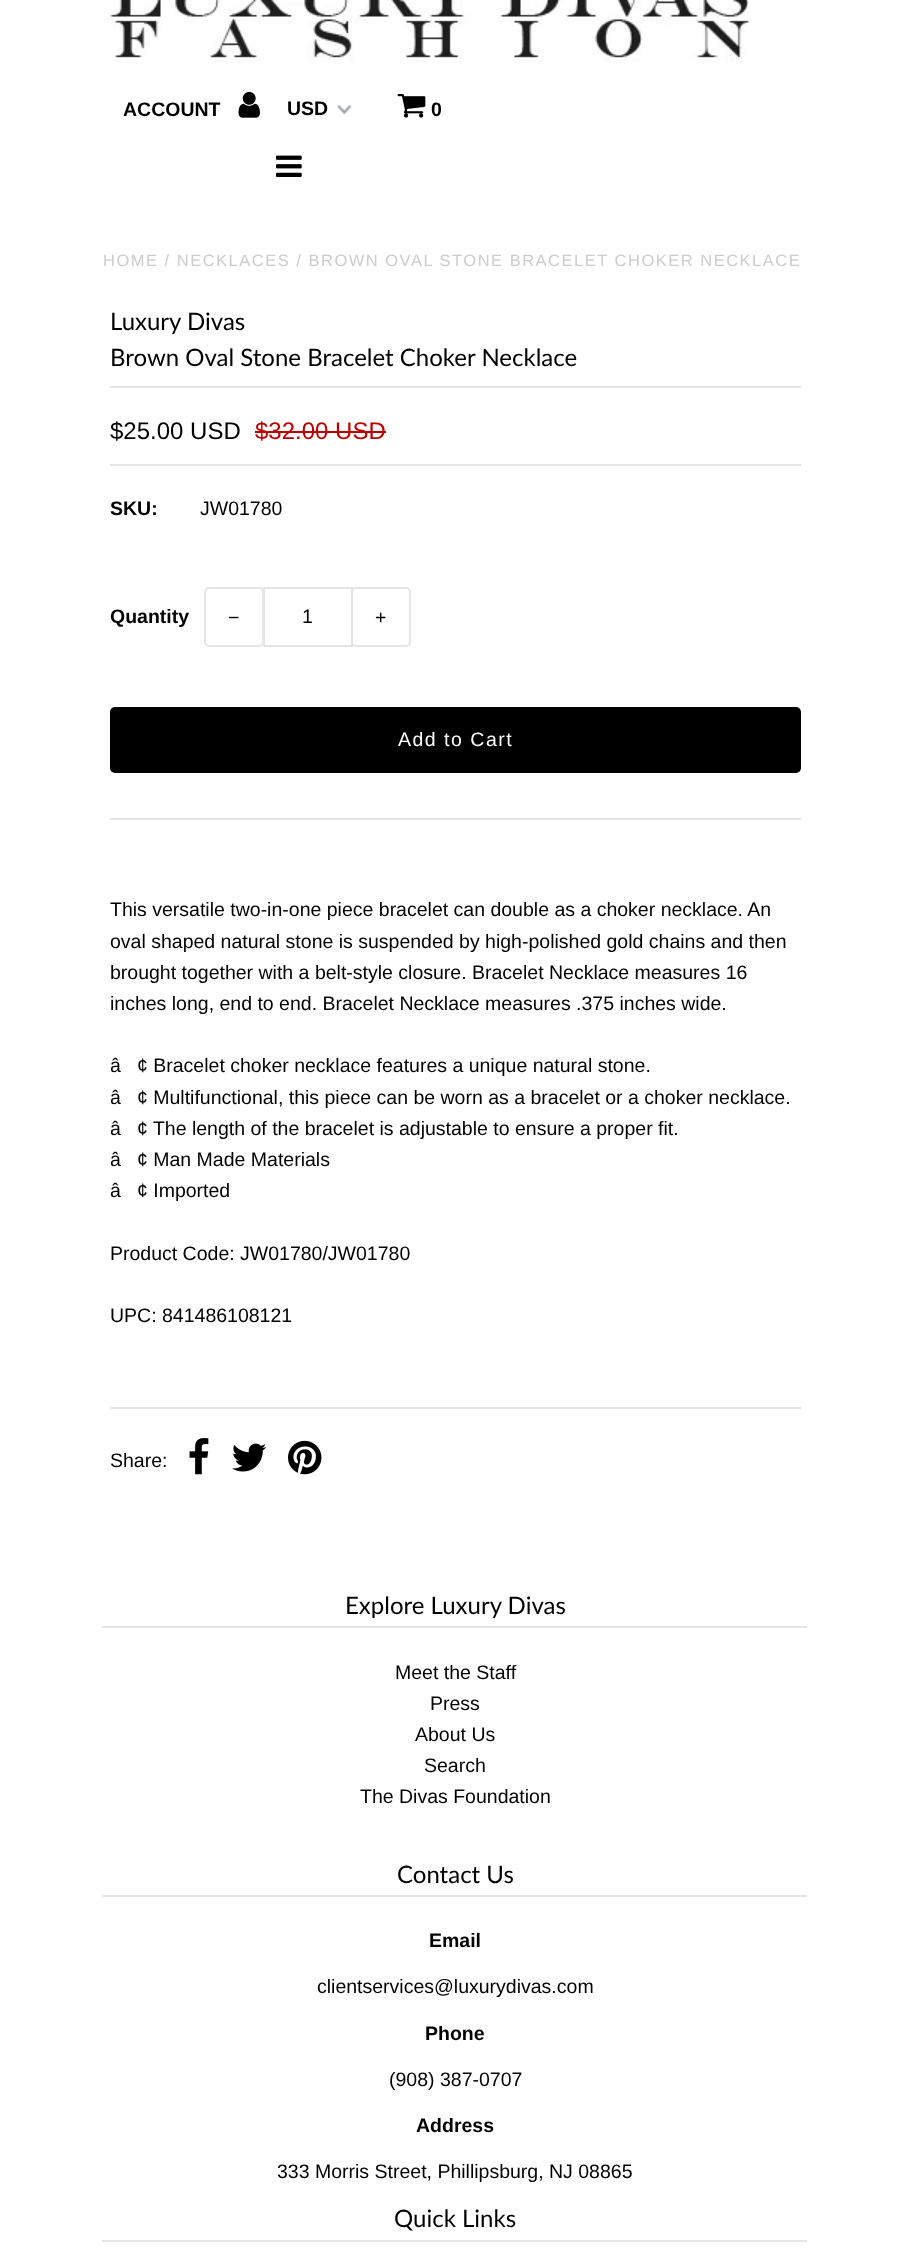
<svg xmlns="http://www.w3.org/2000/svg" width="910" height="2248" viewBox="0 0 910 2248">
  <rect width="100%" height="100%" fill="#fff"/>
  <image x="108" y="0" width="642" height="62" href="img/1.png"/>
  <image x="238" y="91" width="22" height="27" href="img/2.png"/>
  <image x="337" y="104" width="15" height="11" href="img/3.png"/>
  <image x="397" y="94" width="29" height="24" href="img/4.png"/>
  <image x="276" y="155" width="26" height="22" href="img/5.png"/>
  <path d="M110 386h691v2H110z" fill="#e5e5e5"/>
  <path d="M110 818h691v2H110z" fill="#e5e5e5"/>
  <path d="M110 464h691v2H110z" fill="#e5e5e5"/>
  <path d="M255 431h131v2H255z" fill="#bc0000"/>
  <rect x="205" y="588" width="58" height="58" rx="4" fill="none" stroke="#e5e5e5" stroke-width="2"/>
  <path d="M264 588h88v58H264z" fill="none" stroke="#e5e5e5" stroke-width="2"/>
  <rect x="352" y="588" width="58" height="58" rx="4" fill="none" stroke="#e5e5e5" stroke-width="2"/>
  <rect x="110" y="707" width="691" height="66" rx="5" fill="#000"/>
  <path d="M110 1407h691v2H110z" fill="#e5e5e5"/>
  <image x="189" y="1438" width="20" height="37" href="img/6.png"/>
  <image x="232" y="1443" width="35" height="29" href="img/7.png"/>
  <image x="288" y="1440" width="34" height="35" href="img/8.png"/>
  <path d="M102 1626h705v2H102z" fill="#e5e5e5"/>
  <path d="M102 1895h705v2H102z" fill="#e5e5e5"/>
  <path d="M102 2240h705v2H102z" fill="#e5e5e5"/>
  <g font-family="Liberation Sans" font-size="19.5" font-weight="bold" fill="#000">
    <text x="123" y="116">ACCOUNT</text>
    <text x="287" y="115">USD</text>
    <text x="431" y="116">0</text>
  </g>
  <text x="103" y="266" font-family="Liberation Sans" font-size="16.5" letter-spacing="1.5" fill="#ccc">HOME / NECKLACES / BROWN OVAL STONE BRACELET CHOKER NECKLACE</text>
  <g font-family="Lato" font-size="24" fill="#000">
    <text x="110" y="330">Luxury Divas</text>
    <text x="110" y="366">Brown Oval Stone Bracelet Choker Necklace</text>
  </g>
  <text x="110" y="439" font-family="Liberation Sans" font-size="24" fill="#000">$25.00 USD</text>
  <text x="255" y="439" font-family="Liberation Sans" font-size="24" fill="#bc0000">$32.00 USD</text>
  <text x="110" y="515" font-family="Liberation Sans" font-size="19.5" font-weight="bold" fill="#000">SKU:</text>
  <text x="200" y="515" font-family="Liberation Sans" font-size="19.5" fill="#000">JW01780</text>
  <text x="110" y="623" font-family="Liberation Sans" font-size="19.5" font-weight="bold" fill="#000">Quantity</text>
  <text x="228" y="624" font-family="Liberation Sans" font-size="19.5" letter-spacing="1.5" fill="#000">−</text>
  <text x="302" y="623" font-family="Liberation Sans" font-size="19.5" fill="#000">1</text>
  <text x="375" y="624" font-family="Liberation Sans" font-size="19.5" letter-spacing="1.5" fill="#000">+</text>
  <text x="398" y="746" font-family="Liberation Sans" font-size="19.5" letter-spacing="1.5" fill="#fff">Add to Cart</text>
  <g font-family="Liberation Sans" font-size="19.5" fill="#000">
    <text x="110" y="916">This versatile two-in-one piece bracelet can double as a choker necklace. An</text>
    <text x="110" y="948">oval shaped natural stone is suspended by high-polished gold chains and then</text>
    <text x="110" y="979">brought together with a belt-style closure. Bracelet Necklace measures 16</text>
    <text x="110" y="1010">inches long, end to end. Bracelet Necklace measures .375 inches wide.</text>
    <text x="110" y="1072">â</text>
    <text x="137" y="1072">¢ Bracelet choker necklace features a unique natural stone.</text>
    <text x="110" y="1104">â</text>
    <text x="137" y="1104">¢ Multifunctional, this piece can be worn as a bracelet or a choker necklace.</text>
    <text x="110" y="1135">â</text>
    <text x="137" y="1135">¢ The length of the bracelet is adjustable to ensure a proper fit.</text>
    <text x="110" y="1166">â</text>
    <text x="137" y="1166">¢ Man Made Materials</text>
    <text x="110" y="1197">â</text>
    <text x="137" y="1197">¢ Imported</text>
    <text x="110" y="1260">Product Code: JW01780/JW01780</text>
    <text x="110" y="1322">UPC: 841486108121</text>
    <text x="110" y="1467">Share:</text>
  </g>
  <text x="345" y="1614" font-family="Lato" font-size="24" fill="#000">Explore Luxury Divas</text>
  <g font-family="Liberation Sans" font-size="19.5" fill="#000">
    <text x="395" y="1679">Meet the Staff</text>
    <text x="430" y="1710">Press</text>
    <text x="415" y="1741">About Us</text>
    <text x="424" y="1772">Search</text>
    <text x="360" y="1803">The Divas Foundation</text>
  </g>
  <text x="397" y="1883" font-family="Lato" font-size="24" fill="#000">Contact Us</text>
  <text x="429" y="1947" font-family="Liberation Sans" font-size="19.5" font-weight="bold" fill="#000">Email</text>
  <text x="317" y="1993" font-family="Liberation Sans" font-size="19.5" fill="#000">clientservices@luxurydivas.com</text>
  <text x="425" y="2040" font-family="Liberation Sans" font-size="19.5" font-weight="bold" fill="#000">Phone</text>
  <text x="389" y="2086" font-family="Liberation Sans" font-size="19.5" fill="#000">(908) 387-0707</text>
  <text x="416" y="2132" font-family="Liberation Sans" font-size="19.5" font-weight="bold" fill="#000">Address</text>
  <text x="277" y="2178" font-family="Liberation Sans" font-size="19.5" fill="#000">333 Morris Street, Phillipsburg, NJ 08865</text>
  <text x="394" y="2227" font-family="Lato" font-size="24" fill="#000">Quick Links</text>
</svg>
